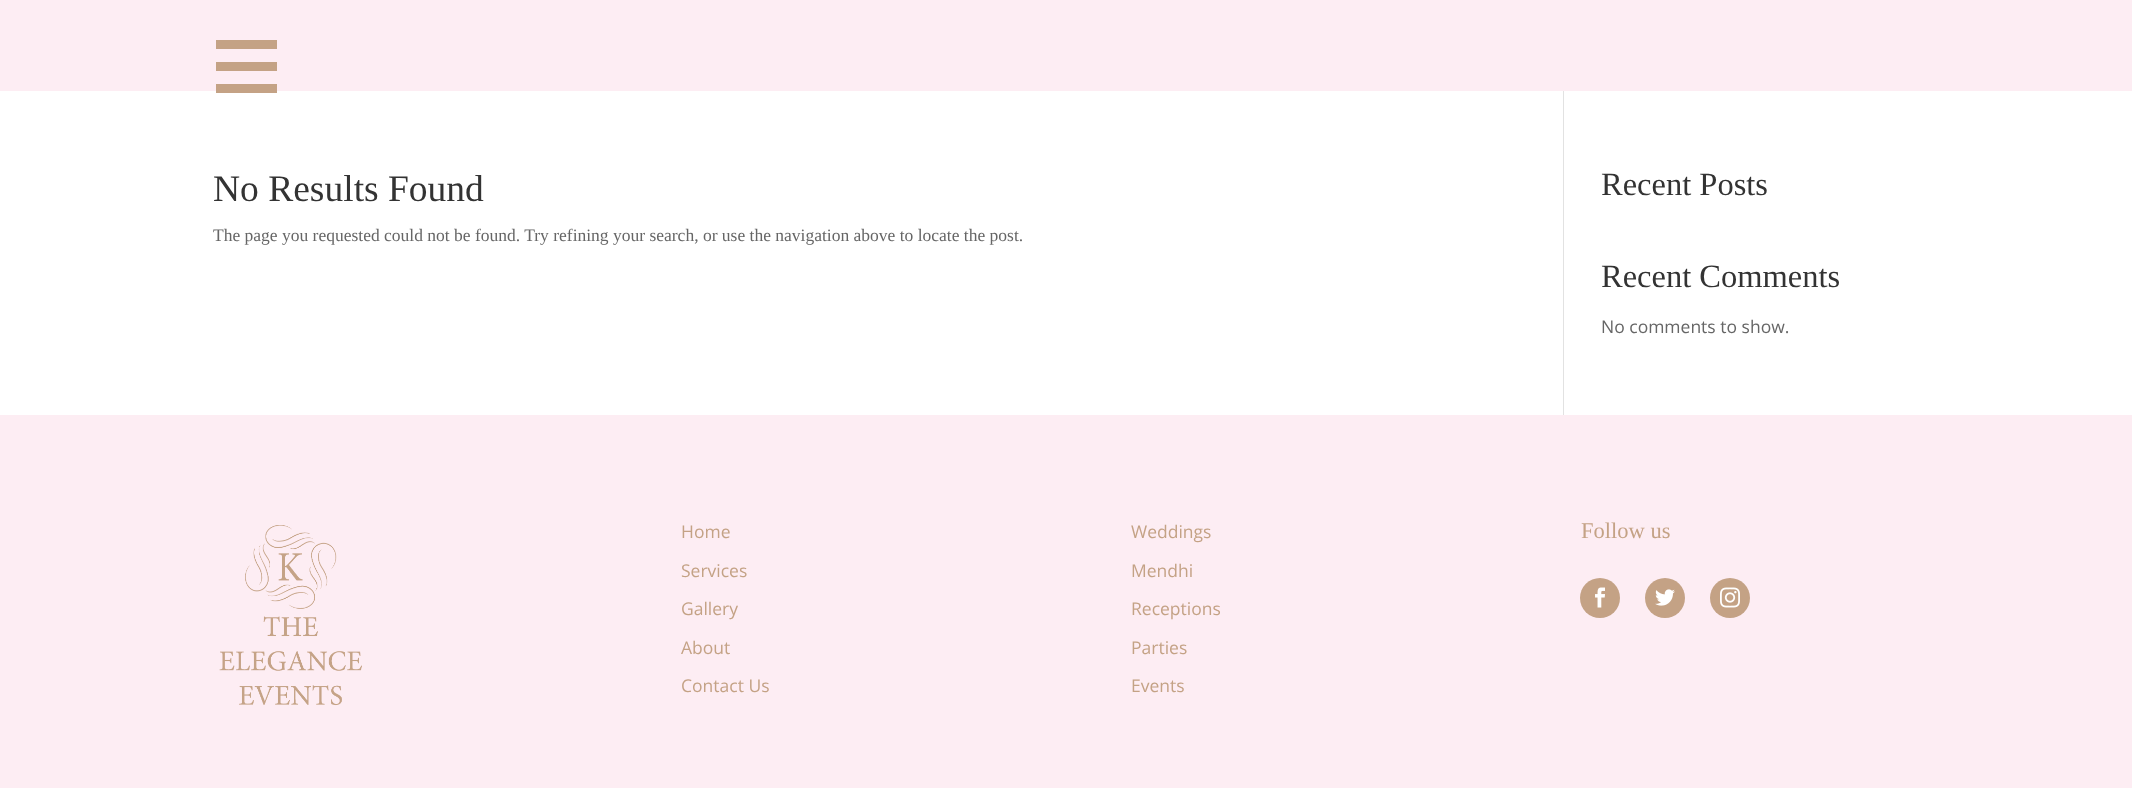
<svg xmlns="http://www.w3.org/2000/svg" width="2132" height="788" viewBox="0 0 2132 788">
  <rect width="100%" height="100%" fill="#fff"/>
  <path d="M0 0h2132v91H0z" fill="#fdedf3"/>
  <path d="M216 71H277V62H216ZM216 93H277V84H216ZM216 40V49H277V40Z" fill="#c4a285"/>
  <path d="M1563 91h1v324H1563z" fill="#e2e2e2"/>
  <path d="M0 415h2132v373H0z" fill="#fdedf3"/>
  <image x="219" y="525" width="143" height="181" href="img/1.png"/>
  <circle cx="1600" cy="598" r="20" fill="#c4a285"/>
  <image x="1595" y="587" width="10" height="21" href="img/2.png"/>
  <circle cx="1665" cy="598" r="20" fill="#c4a285"/>
  <image x="1655" y="589" width="20" height="17" href="img/3.png"/>
  <circle cx="1730" cy="598" r="20" fill="#c4a285"/>
  <image x="1720" y="587" width="20" height="21" href="img/4.png"/>
  <text x="213" y="201" font-family="Liberation Serif" font-size="37.5" fill="#333">No Results Found</text>
  <text x="213" y="241" font-family="Liberation Serif" font-size="17.5" fill="#666">The page you requested could not be found. Try refining your search, or use the navigation above to locate the post.</text>
  <g font-family="Liberation Serif" font-size="32.5" fill="#333">
    <text x="1601" y="195">Recent Posts</text>
    <text x="1601" y="287">Recent Comments</text>
  </g>
  <text x="1601" y="333" font-family="Open Sans" font-size="17.5" fill="#666">No comments to show.</text>
  <g font-family="Open Sans" font-size="17.5" fill="#c4a285">
    <text x="681" y="538">Home</text>
    <text x="681" y="577">Services</text>
    <text x="681" y="615">Gallery</text>
    <text x="681" y="654">About</text>
    <text x="681" y="692">Contact Us</text>
    <text x="1131" y="538">Weddings</text>
    <text x="1131" y="577">Mendhi</text>
    <text x="1131" y="615">Receptions</text>
    <text x="1131" y="654">Parties</text>
    <text x="1131" y="692">Events</text>
  </g>
  <text x="1581" y="538" font-family="Liberation Serif" font-size="22.5" fill="#c4a285">Follow us</text>
</svg>
